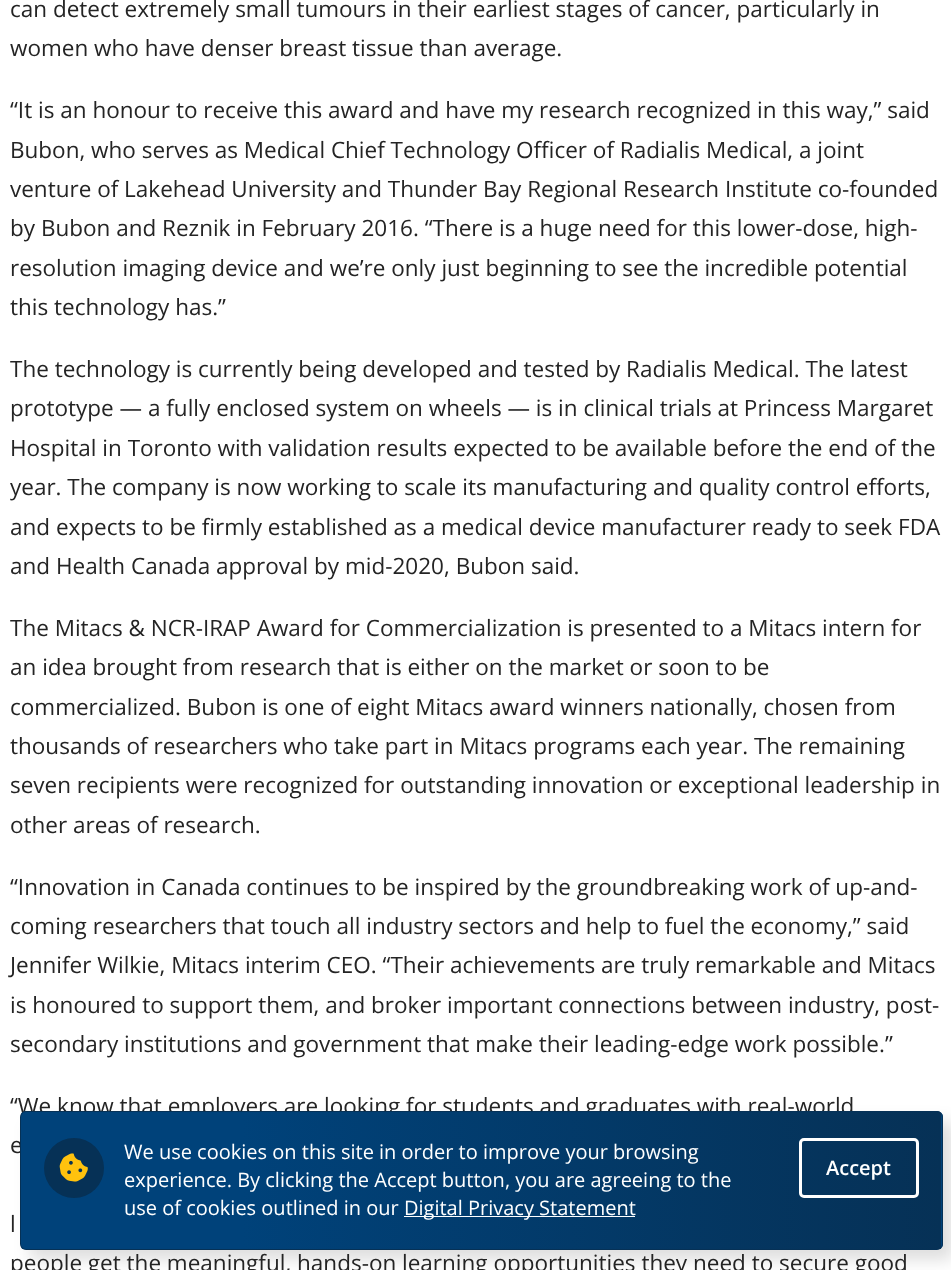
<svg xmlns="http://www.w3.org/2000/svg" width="951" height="1270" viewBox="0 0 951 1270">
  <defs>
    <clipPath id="clip1"><rect x="20" y="1111" width="923" height="139" rx="6"/></clipPath>
    <linearGradient id="g1" gradientUnits="userSpaceOnUse" x1="941" y1="1045" x2="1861" y2="1043"><stop offset="0.24" stop-color="#00427a"/><stop offset="1" stop-color="#063156"/></linearGradient>
    <linearGradient id="g2" gradientUnits="userSpaceOnUse" x1="941" y1="1182" x2="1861" y2="1180"><stop offset="0.24" stop-color="#00427a"/><stop offset="1" stop-color="#063156"/></linearGradient>
    <linearGradient id="g3" gradientUnits="userSpaceOnUse" x1="21" y1="1045" x2="941" y2="1043"><stop offset="0.24" stop-color="#00427a"/><stop offset="1" stop-color="#063156"/></linearGradient>
    <linearGradient id="g4" gradientUnits="userSpaceOnUse" x1="21" y1="1182" x2="941" y2="1180"><stop offset="0.24" stop-color="#00427a"/><stop offset="1" stop-color="#063156"/></linearGradient>
  </defs>
  <rect width="100%" height="100%" fill="#fff"/>
  <rect x="30" y="1121" width="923" height="139" rx="6" fill="#00000021" filter="blur(8px)"/>
  <g clip-path="url(#clip1)">
    <path d="M941 1112h2v1H941z" fill="url(#g1)"/>
    <path d="M941 1113h2v136H941z" fill="url(#g2)"/>
  </g>
  <g font-family="Open Sans" font-size="22.5" fill="#242424">
    <text x="10" y="17">can detect extremely small tumours in their earliest stages of cancer, particularly in</text>
    <text x="10" y="56">women who have denser breast tissue than average.</text>
    <text x="10" y="118">“It is an honour to receive this award and have my research recognized in this way,” said</text>
    <text x="10" y="158">Bubon, who serves as Medical Chief Technology Officer of Radialis Medical, a joint</text>
    <text x="10" y="197">venture of Lakehead University and Thunder Bay Regional Research Institute co-founded</text>
    <text x="10" y="236">by Bubon and Reznik in February 2016. “There is a huge need for this lower-dose, high-</text>
    <text x="10" y="276">resolution imaging device and we’re only just beginning to see the incredible potential</text>
    <text x="10" y="315">this technology has.”</text>
    <text x="10" y="377">The technology is currently being developed and tested by Radialis Medical. The latest</text>
    <text x="10" y="416">prototype — a fully enclosed system on wheels — is in clinical trials at Princess Margaret</text>
    <text x="10" y="456">Hospital in Toronto with validation results expected to be available before the end of the</text>
    <text x="10" y="495">year. The company is now working to scale its manufacturing and quality control efforts,</text>
    <text x="10" y="535">and expects to be firmly established as a medical device manufacturer ready to seek FDA</text>
    <text x="10" y="574">and Health Canada approval by mid-2020, Bubon said.</text>
    <text x="10" y="636">The Mitacs &amp; NCR-IRAP Award for Commercialization is presented to a Mitacs intern for</text>
    <text x="10" y="675">an idea brought from research that is either on the market or soon to be</text>
    <text x="10" y="715">commercialized. Bubon is one of eight Mitacs award winners nationally, chosen from</text>
    <text x="10" y="754">thousands of researchers who take part in Mitacs programs each year. The remaining</text>
    <text x="10" y="793">seven recipients were recognized for outstanding innovation or exceptional leadership in</text>
    <text x="10" y="833">other areas of research.</text>
    <text x="10" y="895">“Innovation in Canada continues to be inspired by the groundbreaking work of up-and-</text>
    <text x="10" y="934">coming researchers that touch all industry sectors and help to fuel the economy,” said</text>
    <text x="10" y="973">Jennifer Wilkie, Mitacs interim CEO. “Their achievements are truly remarkable and Mitacs</text>
    <text x="10" y="1013">is honoured to support them, and broker important connections between industry, post-</text>
    <text x="10" y="1052">secondary institutions and government that make their leading-edge work possible.”</text>
    <text x="10" y="1114">“We know that employers are looking for students and graduates with real-world</text>
    <text x="10" y="1153">e</text>
    <text x="10" y="1232">l</text>
    <text x="10" y="1271">people get the meaningful, hands-on learning opportunities they need to secure good</text>
  </g>
  <g clip-path="url(#clip1)">
    <path d="M21 1111h920v2H21z" fill="url(#g3)"/>
    <path d="M21 1113h920v136H21z" fill="url(#g4)"/>
  </g>
  <rect x="20.5" y="1111.5" width="922" height="138" rx="5.5" fill="none" stroke="#063156"/>
  <circle cx="74" cy="1168" r="30" fill="#063156"/>
  <image x="59" y="1153" width="29" height="29" href="img/1.png"/>
  <g font-family="Open Sans" font-size="20" fill="#fff">
    <text x="124" y="1159">We use cookies on this site in order to improve your browsing</text>
    <text x="124" y="1187">experience. By clicking the Accept button, you are agreeing to the</text>
    <text x="124" y="1215">use of cookies outlined in our</text>
  </g>
  <path d="M404 1216h231v1H404z" fill="#fff"/>
  <text x="404" y="1215" font-family="Open Sans" font-size="20" fill="#fff">Digital Privacy Statement</text>
  <rect x="800.5" y="1139.5" width="117" height="57" rx="3.5" fill="none" stroke="#fff" stroke-width="3"/>
  <text x="826" y="1175" font-family="Open Sans" font-size="20" font-weight="600" fill="#fff">Accept</text>
</svg>
